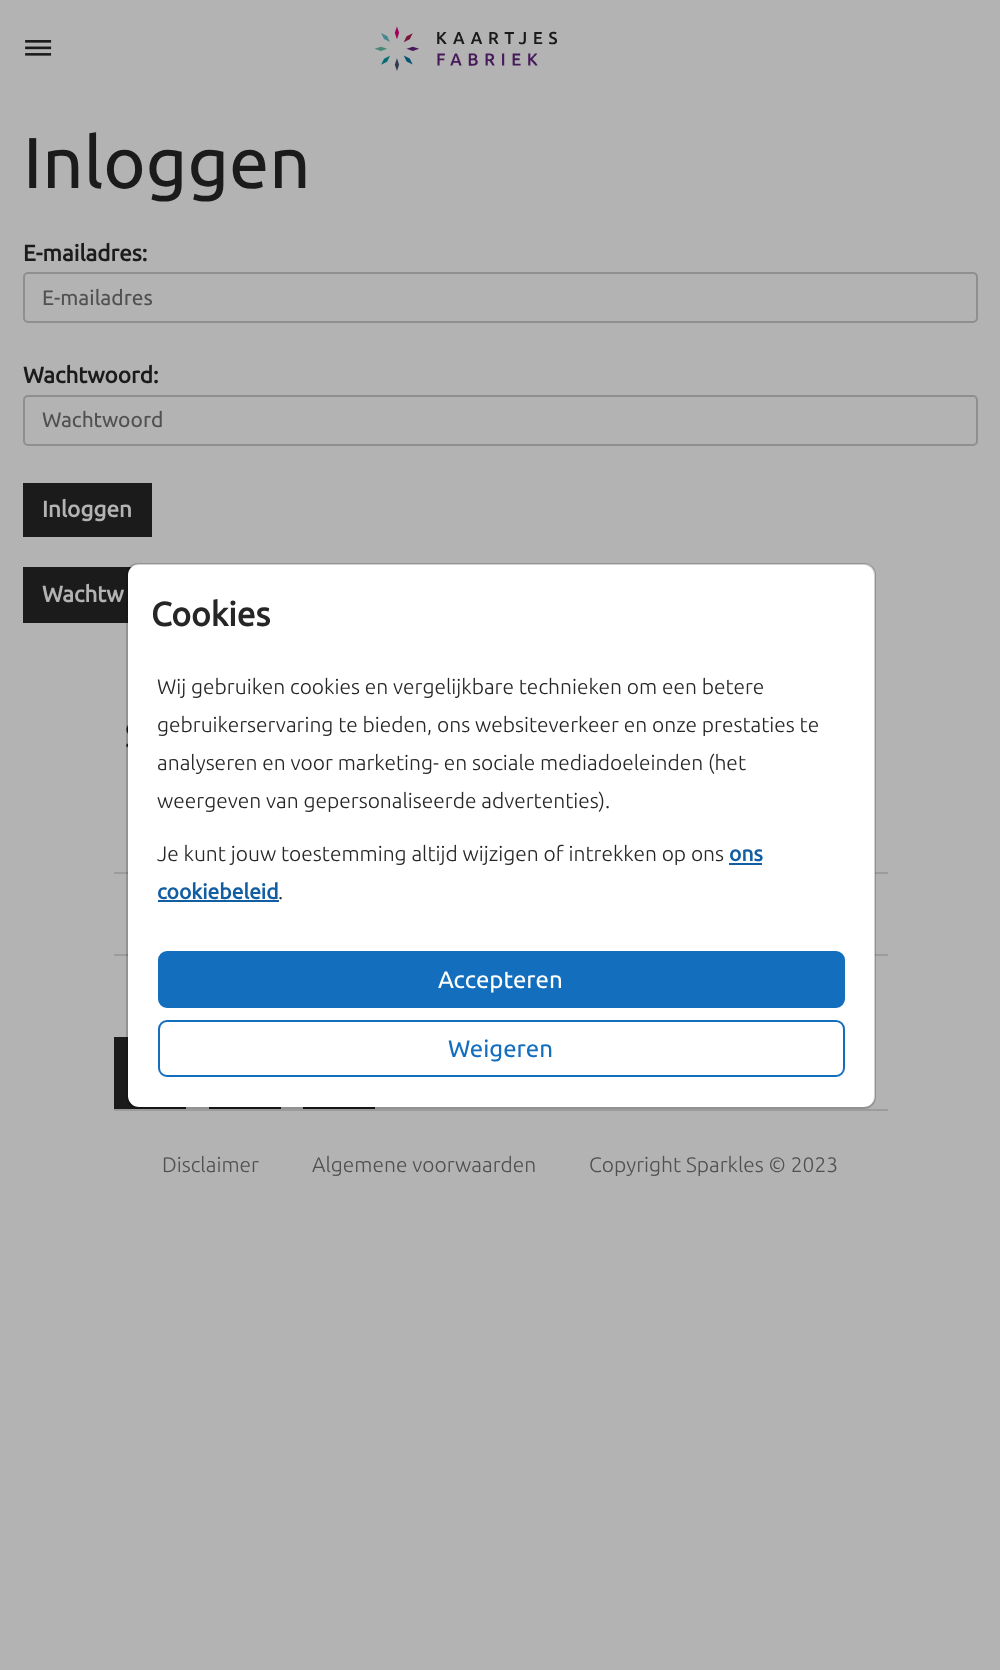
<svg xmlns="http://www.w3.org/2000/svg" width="1000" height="1670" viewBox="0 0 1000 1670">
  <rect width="100%" height="100%" fill="#b3b3b3"/>
  <image x="25" y="40" width="27" height="16" href="img/1.png"/>
  <image x="374" y="26" width="184" height="45" href="img/2.png"/>
  <rect x="24" y="273" width="953" height="49" rx="4" fill="none" stroke="#8f8f8f" stroke-width="2"/>
  <rect x="24" y="396" width="953" height="49" rx="4" fill="none" stroke="#8f8f8f" stroke-width="2"/>
  <path d="M23 483h129v54H23z" fill="#1b1b1b"/>
  <path d="M23 567h109v56H23z" fill="#1b1b1b"/>
  <path d="M114 872h774v2H114z" fill="#9c9c9c"/>
  <path d="M114 954h774v2H114z" fill="#9c9c9c"/>
  <image x="114" y="1037" width="72" height="72" href="img/4.png"/>
  <rect x="128" y="564" width="747" height="543" rx="11" fill="#fff"/>
  <image x="126" y="725" width="2" height="23" href="img/3.png"/>
  <image x="209" y="1107" width="72" height="2" href="img/5.png"/>
  <image x="303" y="1107" width="72" height="2" href="img/5.png"/>
  <rect x="127" y="564" width="748" height="544" rx="11" fill="none" stroke="#0000002e" stroke-width="2"/>
  <path d="M729 863h33v2H729z" fill="#115ea2"/>
  <path d="M158 900h121v2H158z" fill="#115ea2"/>
  <rect x="159" y="952" width="685" height="55" rx="8" fill="#146ebe" stroke="#146ebe" stroke-width="2"/>
  <rect x="159" y="1021" width="685" height="55" rx="8" fill="none" stroke="#146ebe" stroke-width="2"/>
  <path d="M114 1109h774v2H114z" fill="#9c9c9c"/>
  <text x="23" y="188" font-family="Ubuntu" font-size="72" fill="#1b1b1b">Inloggen</text>
  <text x="23" y="261" font-family="Ubuntu" font-size="22.5" font-weight="bold" fill="#1b1b1b">E-mailadres:</text>
  <text x="42" y="305" font-family="Ubuntu" font-size="21" fill="#505050">E-mailadres</text>
  <text x="23" y="383" font-family="Ubuntu" font-size="22.5" font-weight="bold" fill="#1b1b1b">Wachtwoord:</text>
  <text x="42" y="427" font-family="Ubuntu" font-size="21" fill="#505050">Wachtwoord</text>
  <g font-family="Ubuntu" font-size="22.5" font-weight="bold" fill="#b3b3b3">
    <text x="42" y="517">Inloggen</text>
    <text x="42" y="602">Wachtw</text>
  </g>
  <text x="151" y="626" font-family="Ubuntu" font-size="33.5" font-weight="bold" fill="#262626">Cookies</text>
  <g font-family="Ubuntu" font-size="21" font-weight="300" fill="#262626">
    <text x="157" y="694">Wij gebruiken cookies en vergelijkbare technieken om een betere</text>
    <text x="157" y="732">gebruikerservaring te bieden, ons websiteverkeer en onze prestaties te</text>
    <text x="157" y="770">analyseren en voor marketing- en sociale mediadoeleinden (het</text>
    <text x="157" y="808">weergeven van gepersonaliseerde advertenties).</text>
    <text x="157" y="861">Je kunt jouw toestemming altijd wijzigen of intrekken op ons</text>
  </g>
  <g font-family="Ubuntu" font-size="21" font-weight="bold" fill="#115ea2">
    <text x="729" y="861">ons</text>
    <text x="157" y="899">cookiebeleid</text>
  </g>
  <text x="278" y="899" font-family="Ubuntu" font-size="21" font-weight="300" fill="#262626">.</text>
  <text x="438" y="988" font-family="Ubuntu" font-size="24" fill="#fff">Accepteren</text>
  <text x="448" y="1057" font-family="Ubuntu" font-size="24" fill="#146ebe">Weigeren</text>
  <g font-family="Ubuntu" font-size="21" font-weight="300" fill="#505050">
    <text x="162" y="1172">Disclaimer</text>
    <text x="312" y="1172">Algemene voorwaarden</text>
    <text x="589" y="1172">Copyright Sparkles © 2023</text>
  </g>
</svg>
